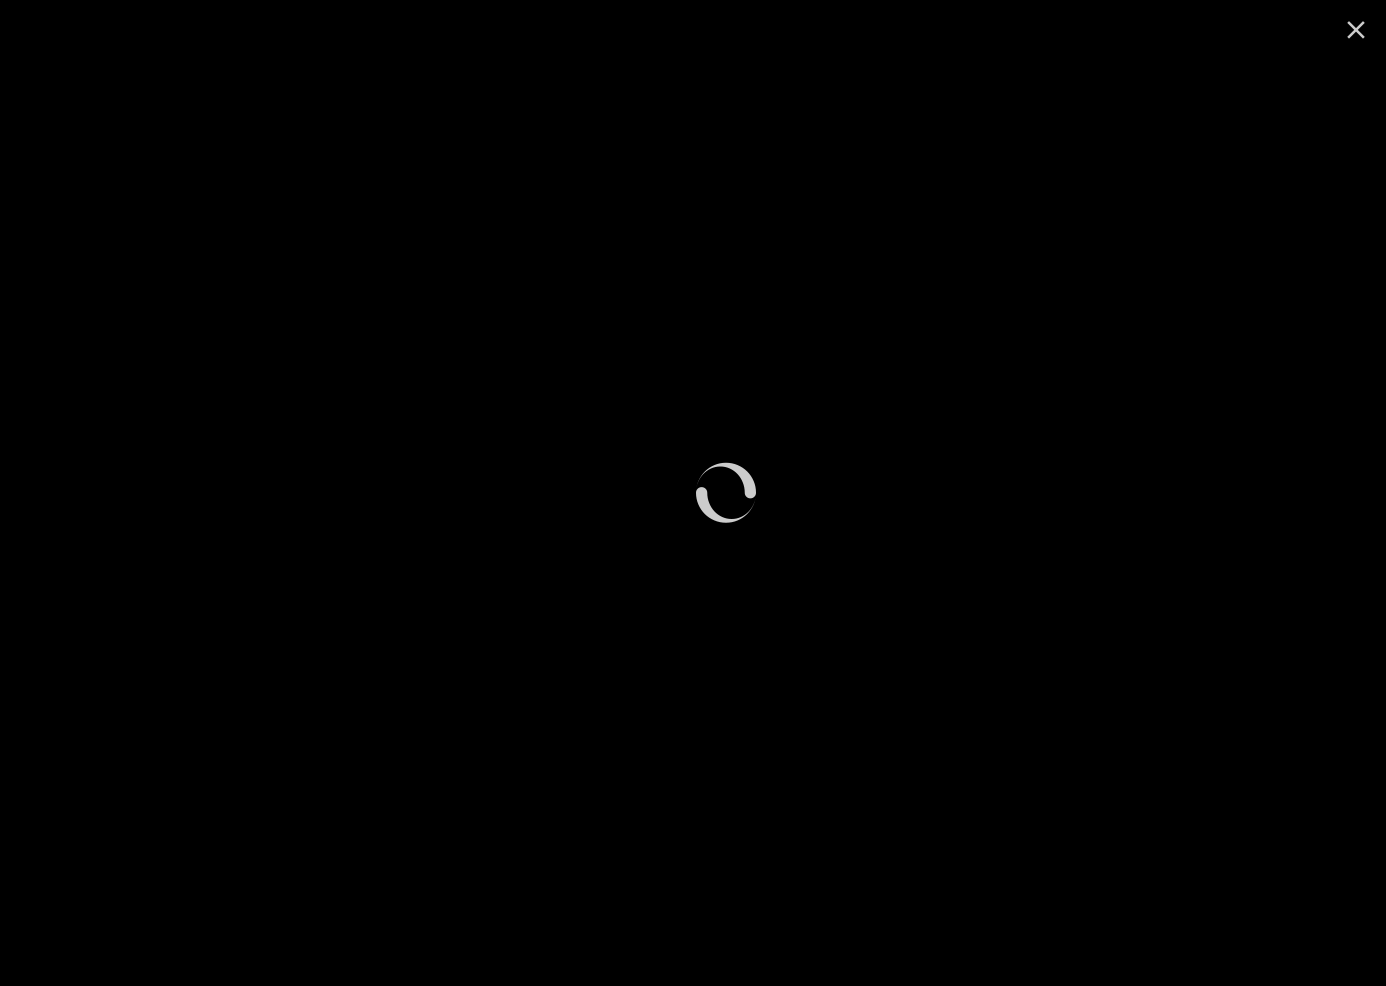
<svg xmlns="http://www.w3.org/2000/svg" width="1386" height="986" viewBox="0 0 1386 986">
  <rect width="100%" height="100%" fill="#000"/>
  <image x="1347" y="21" width="18" height="18" href="img/1.png"/>
  <image x="696" y="462" width="60" height="61" href="img/2.png"/>
</svg>
